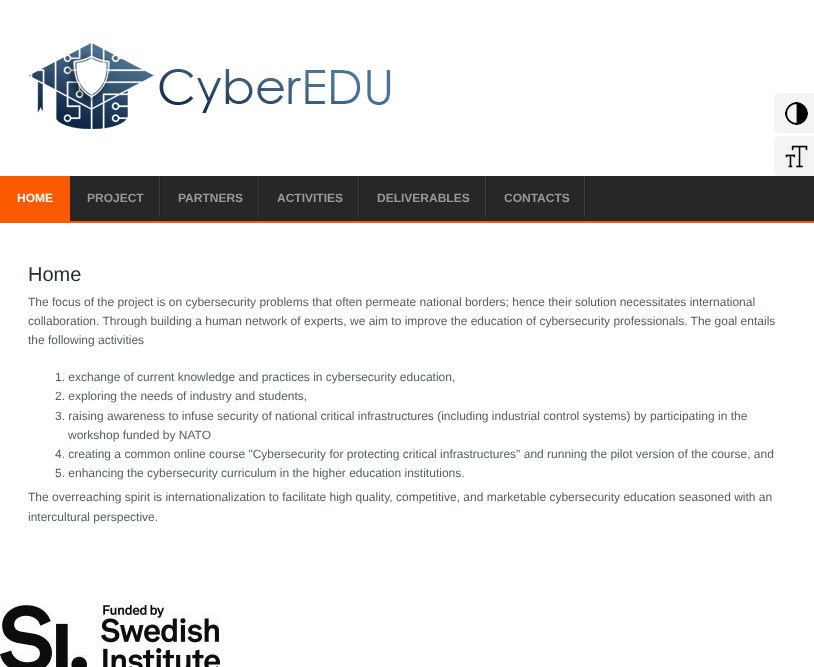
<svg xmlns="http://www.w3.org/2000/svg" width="814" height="667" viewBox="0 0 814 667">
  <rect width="100%" height="100%" fill="#fff"/>
  <rect x="774" y="93" width="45" height="40" rx="5" fill="#f3f4f5"/>
  <image x="785" y="102" width="23" height="23" href="img/1.png"/>
  <rect x="774" y="136" width="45" height="40" rx="5" fill="#f3f4f5"/>
  <image x="785" y="145" width="23" height="23" href="img/2.png"/>
  <image x="29" y="43" width="362" height="86" href="img/3.png"/>
  <path d="M70 176h744v45H70z" fill="#272727"/>
  <path d="M0 221h814v2H0z" fill="#fb5a02"/>
  <path d="M0 176h70v45H0z" fill="#fb5a02"/>
  <image x="159" y="176" width="2" height="41" href="img/4.png"/>
  <image x="258" y="176" width="2" height="41" href="img/4.png"/>
  <image x="358" y="176" width="2" height="41" href="img/4.png"/>
  <image x="485" y="176" width="2" height="41" href="img/4.png"/>
  <image x="584" y="176" width="2" height="41" href="img/4.png"/>
  <image x="0" y="605" width="220" height="62" href="img/5.png"/>
  <text x="17" y="202" font-family="Liberation Sans" font-size="12" font-weight="bold" fill="#fff">HOME</text>
  <g font-family="Liberation Sans" font-size="12" font-weight="bold" fill="#999">
    <text x="87" y="202">PROJECT</text>
    <text x="178" y="202">PARTNERS</text>
    <text x="277" y="202">ACTIVITIES</text>
    <text x="377" y="202">DELIVERABLES</text>
    <text x="504" y="202">CONTACTS</text>
  </g>
  <text x="28" y="281" font-family="Liberation Sans" font-size="20" fill="#222e36">Home</text>
  <g font-family="Liberation Sans" font-size="12" fill="#515f5c">
    <text x="28" y="306">The focus of the project is on cybersecurity problems that often permeate national borders; hence their solution necessitates international</text>
    <text x="28" y="325">collaboration. Through building a human network of experts, we aim to improve the education of cybersecurity professionals. The goal entails</text>
    <text x="28" y="344">the following activities</text>
    <text x="55" y="381">1. exchange of current knowledge and practices in cybersecurity education,</text>
    <text x="55" y="400">2. exploring the needs of industry and students,</text>
    <text x="55" y="420">3. raising awareness to infuse security of national critical infrastructures (including industrial control systems) by participating in the</text>
    <text x="68" y="439">workshop funded by NATO</text>
    <text x="55" y="458">4. creating a common online course "Cybersecurity for protecting critical infrastructures" and running the pilot version of the course, and</text>
    <text x="55" y="477">5. enhancing the cybersecurity curriculum in the higher education institutions.</text>
    <text x="28" y="501">The overreaching spirit is internationalization to facilitate high quality, competitive, and marketable cybersecurity education seasoned with an</text>
    <text x="28" y="521">intercultural perspective.</text>
  </g>
</svg>
